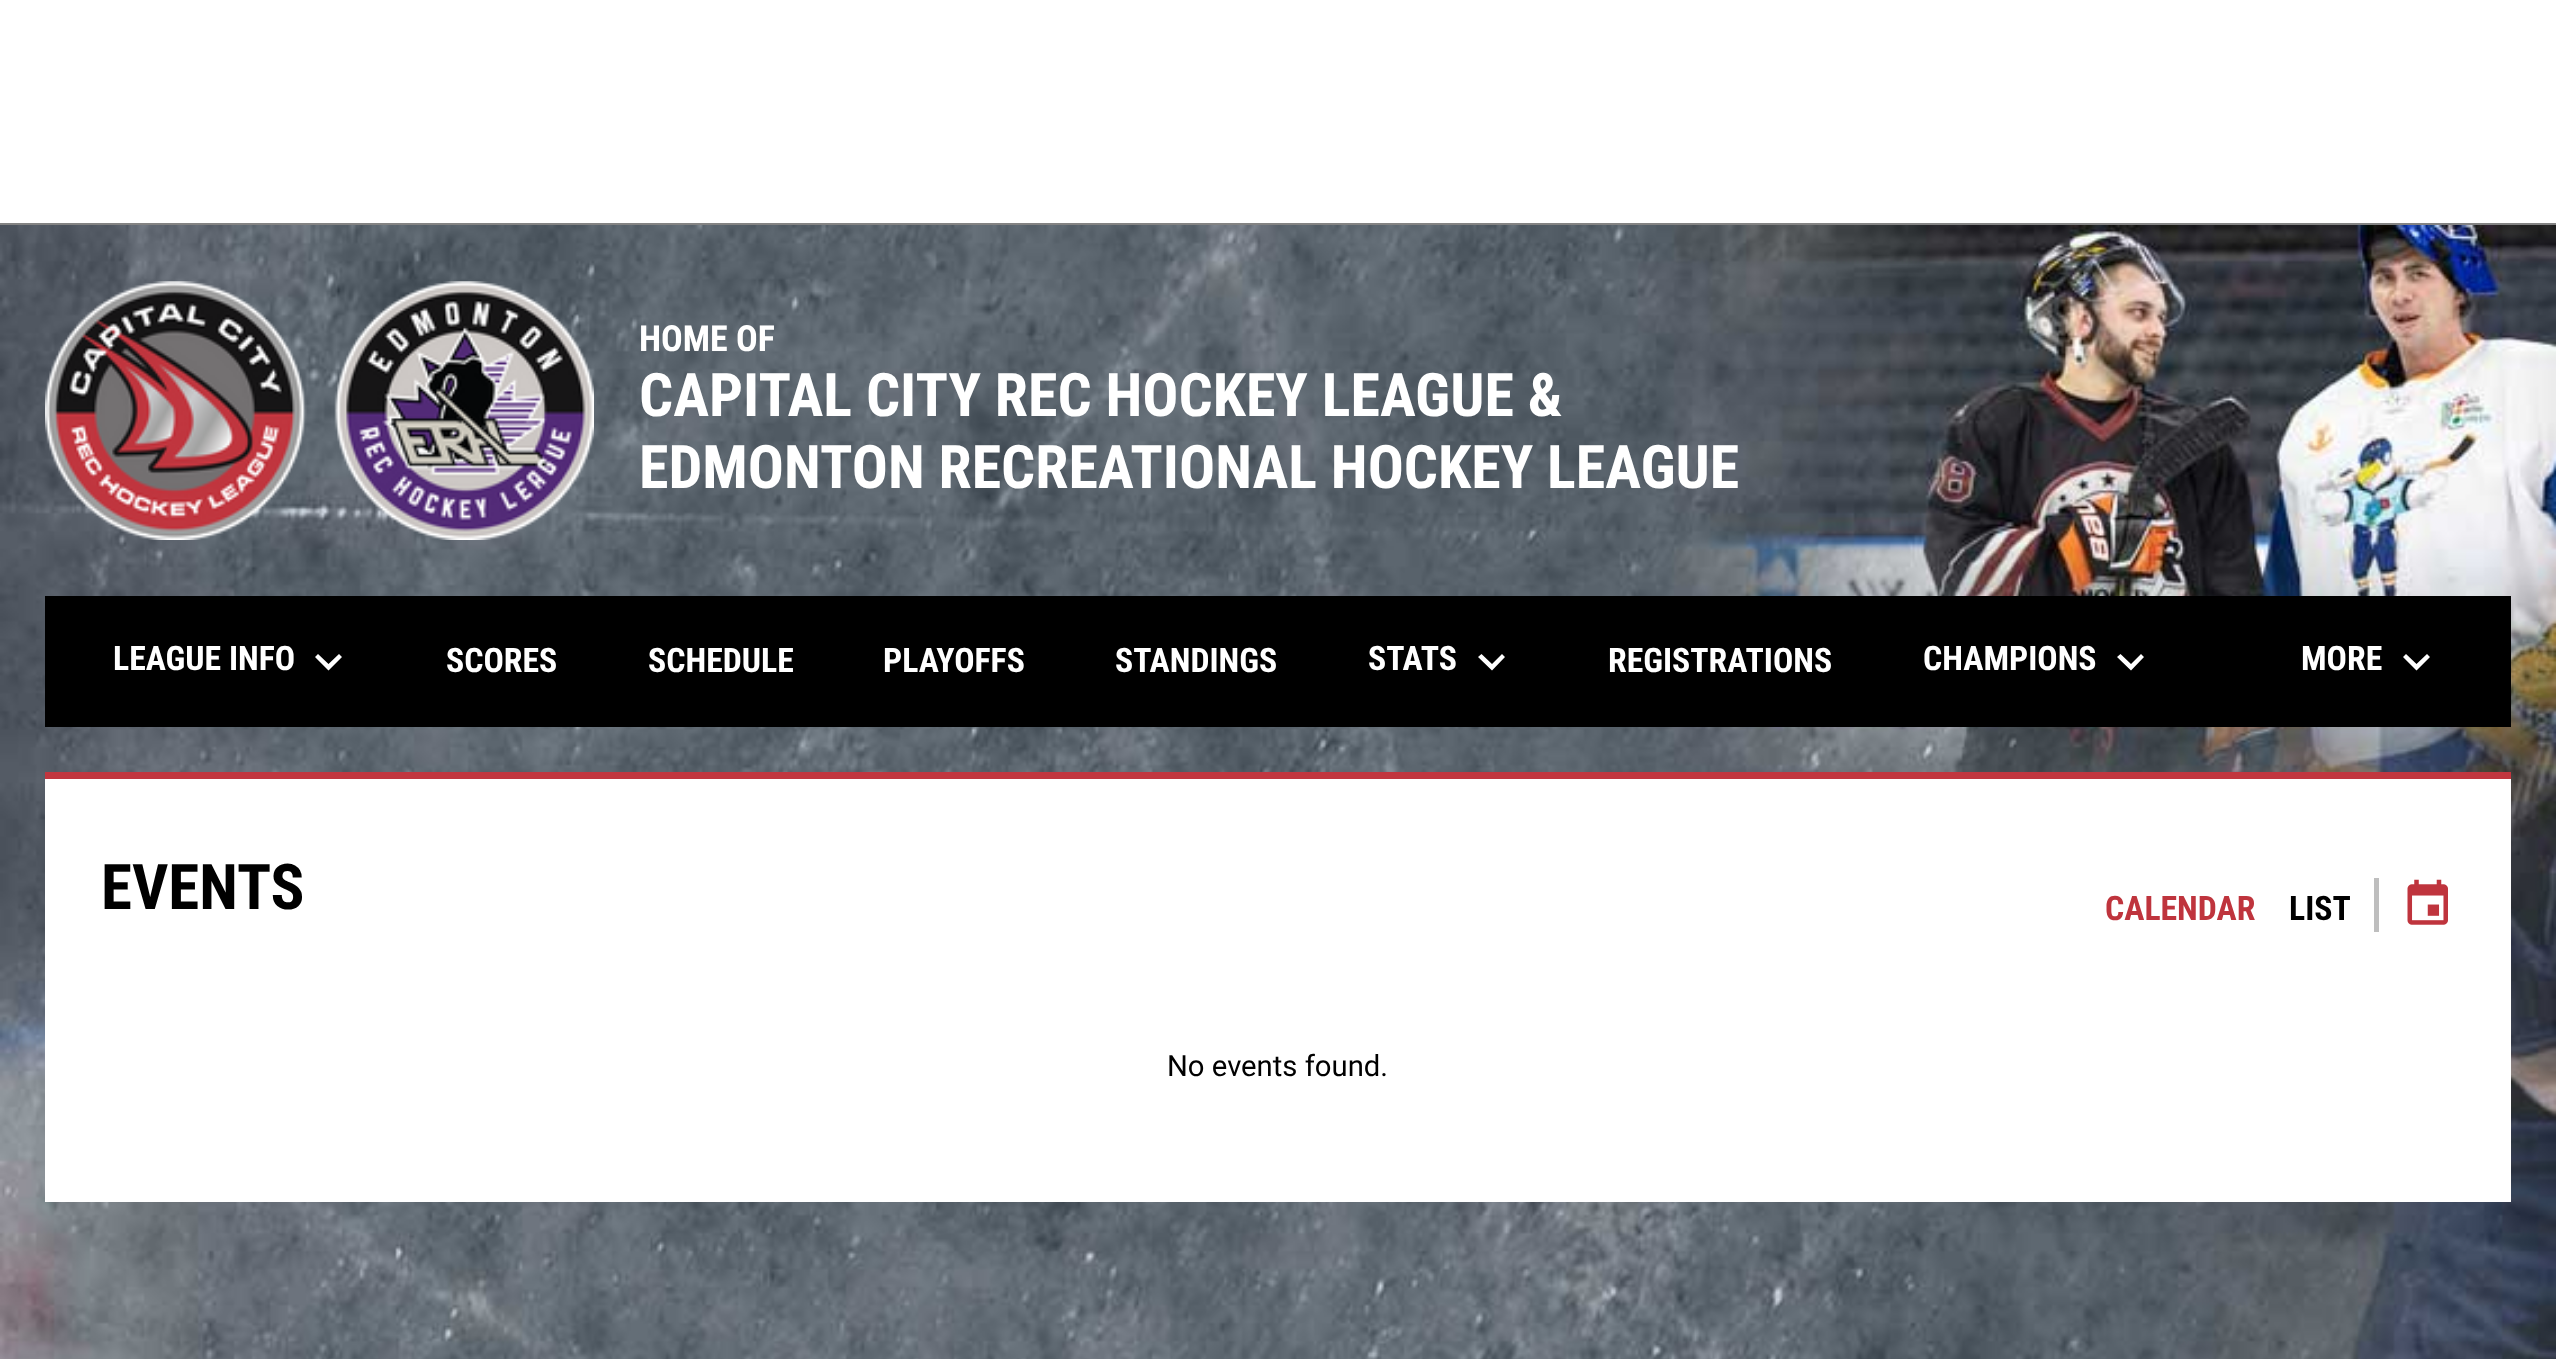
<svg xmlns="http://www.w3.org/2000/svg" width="2556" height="1359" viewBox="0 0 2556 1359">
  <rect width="100%" height="100%" fill="#fff"/>
  <path d="M0 223h2556v2H0z" fill="#838383"/>
  <image x="0" y="225" width="2556" height="1134" href="img/1.png"/>
  <image x="45" y="281" width="549" height="259" href="img/2.png"/>
  <path d="M45 596h2466v131H45z" fill="#000"/>
  <path d="M318 654L328.5 664L339 654L342 657L328.5 670.5L315 657Z" fill="#fff"/>
  <path d="M1481.5 654L1492 664L1502 654L1505 657L1492 670.5L1478 657Z" fill="#fff"/>
  <path d="M2120.5 654L2131 664L2141 654L2144 657L2131 670.5L2117 657Z" fill="#fff"/>
  <path d="M2406 654L2416.5 664L2427 654L2430 657L2416.5 670.5L2403 657Z" fill="#fff"/>
  <path d="M45 779h2466v423H45z" fill="#fff"/>
  <path d="M45 772h2466v7H45z" fill="#c1363f"/>
  <path d="M2374 878h5v54H2374z" fill="#bebebe"/>
  <image x="2407" y="879" width="41" height="46" href="img/3.png"/>
  <text x="639" y="351" font-family="Roboto Condensed" font-size="36" font-weight="bold" fill="#fff">HOME OF</text>
  <g font-family="Roboto Condensed" font-size="60" font-weight="bold" fill="#fff">
    <text x="639" y="416">CAPITAL CITY REC HOCKEY LEAGUE &amp;</text>
    <text x="639" y="488">EDMONTON RECREATIONAL HOCKEY LEAGUE</text>
  </g>
  <g font-family="Roboto Condensed" font-size="33.75" font-weight="bold" fill="#fff">
    <text x="113" y="670">LEAGUE INFO</text>
    <text x="446" y="672">SCORES</text>
    <text x="648" y="672">SCHEDULE</text>
    <text x="883" y="672">PLAYOFFS</text>
    <text x="1115" y="672">STANDINGS</text>
    <text x="1368" y="670">STATS</text>
    <text x="1608" y="672">REGISTRATIONS</text>
    <text x="1923" y="670">CHAMPIONS</text>
    <text x="2301" y="670">MORE</text>
  </g>
  <text x="101" y="909" font-family="Roboto Condensed" font-size="63" font-weight="bold" fill="#000">EVENTS</text>
  <text x="2105" y="920" font-family="Roboto Condensed" font-size="33.75" font-weight="bold" fill="#bf343d">CALENDAR</text>
  <text x="2289" y="920" font-family="Roboto Condensed" font-size="33.75" font-weight="bold" fill="#000">LIST</text>
  <text x="1167" y="1076" font-family="Roboto" font-size="29.25" fill="#000">No events found.</text>
</svg>
